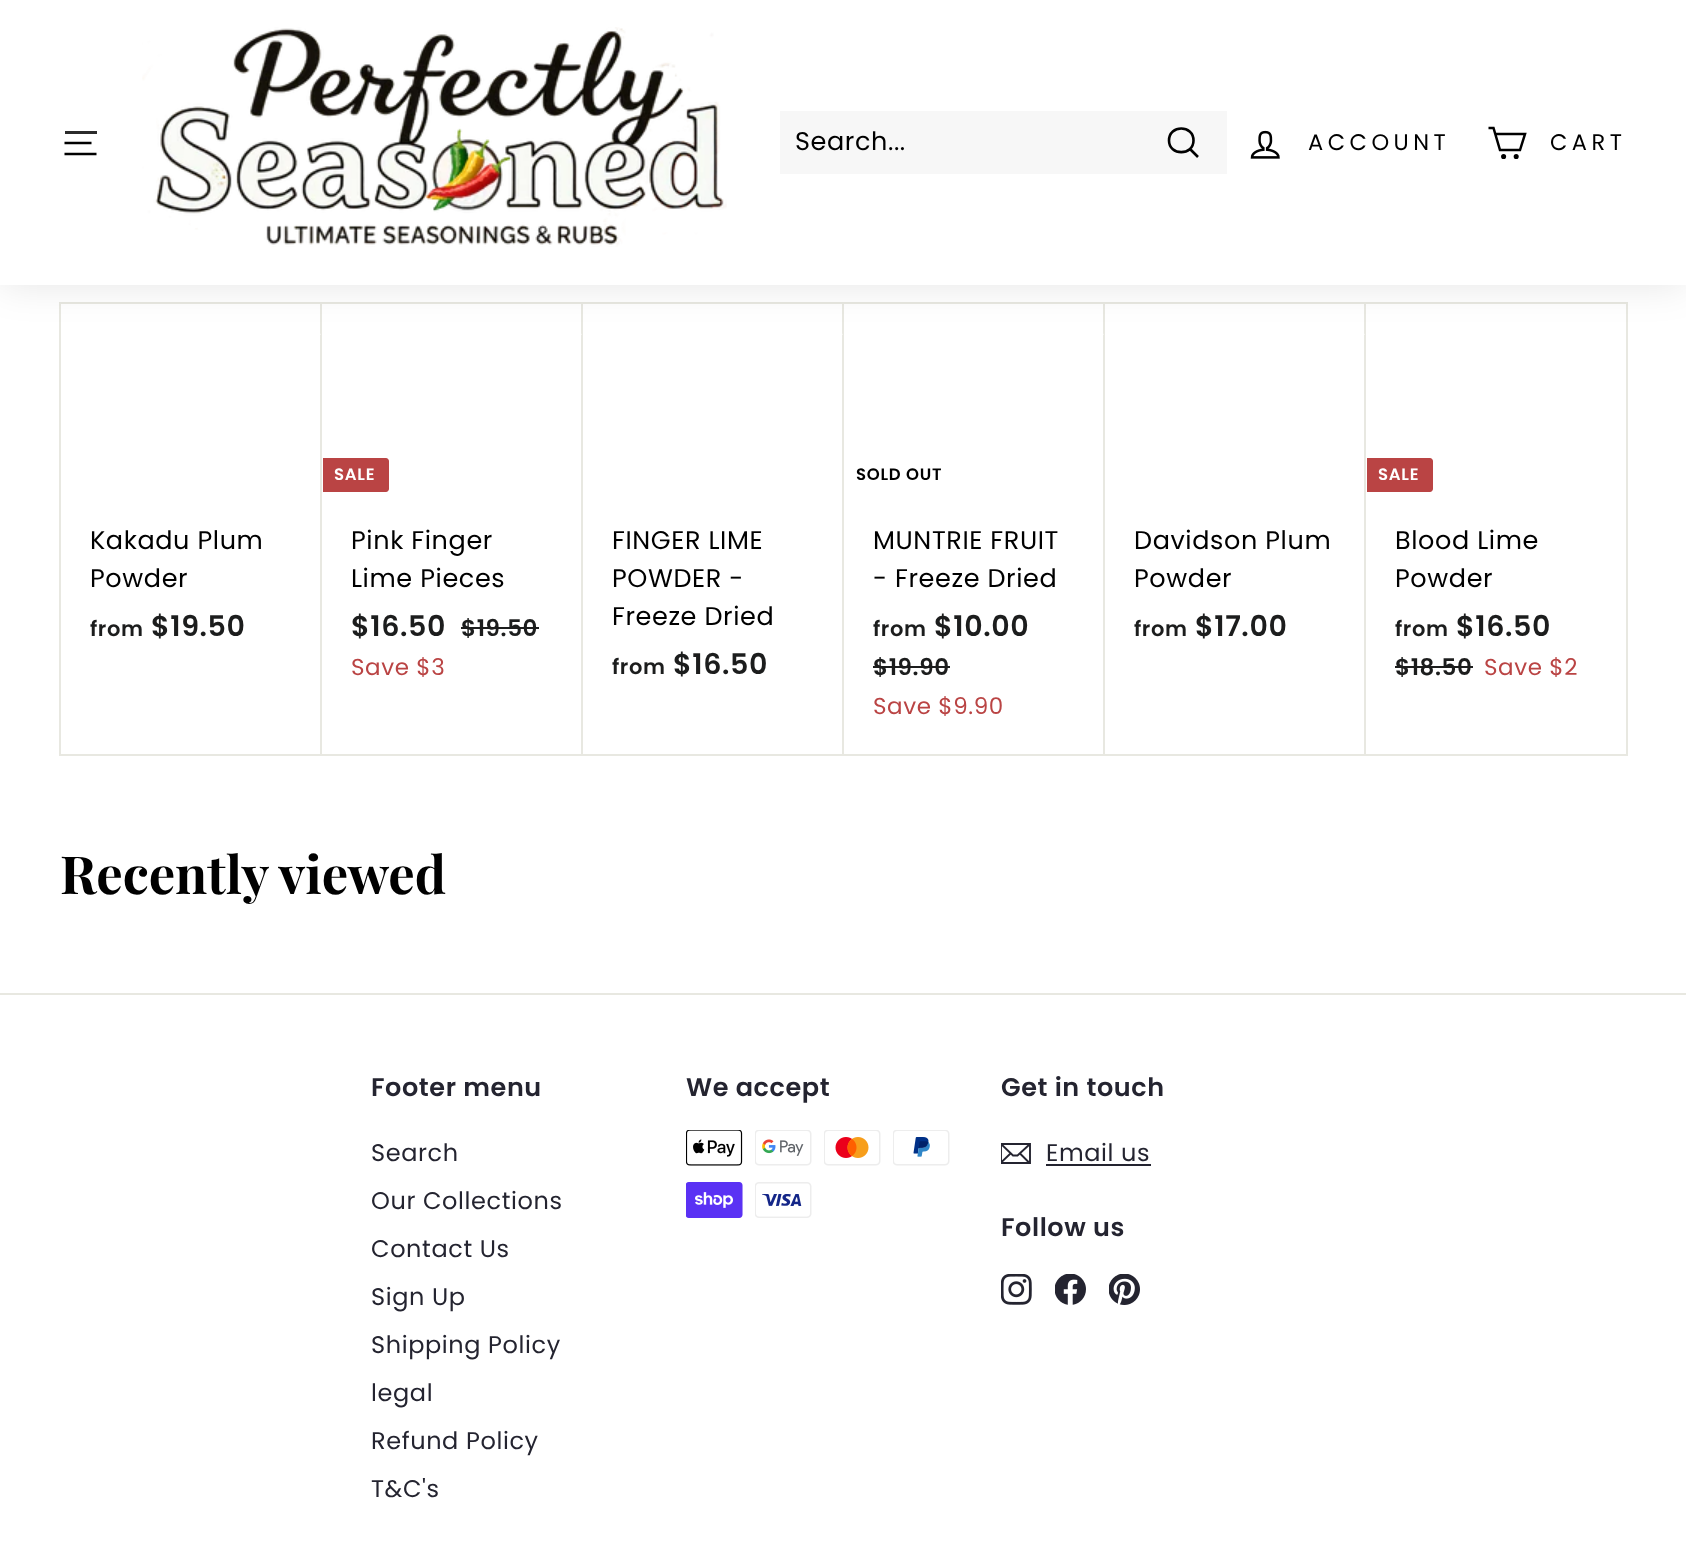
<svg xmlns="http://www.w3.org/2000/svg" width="1686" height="1559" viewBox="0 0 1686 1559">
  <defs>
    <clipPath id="clip1"><path d="M1001 1139h30v30H1001z"/></clipPath>
  </defs>
  <rect width="100%" height="100%" fill="#fff"/>
  <path d="M60 303h262v452H60z" fill="none" stroke="#e8e8e1" stroke-width="2"/>
  <path d="M322 304h1v450H322z" fill="#fff"/>
  <path d="M461 627h78v2H461z" fill="#1c1d1d"/>
  <path d="M321 303h262v452H321z" fill="none" stroke="#e8e8e1" stroke-width="2"/>
  <path d="M316.5 321.5C316.5 334.5 296.5 334.5 296.5 321.5C296.5 308.5 316.5 308.5 316.5 321.5ZM320 335L313.5 328.5" fill="none" stroke="#fff" stroke-width="2.2"/>
  <path d="M583 304h1v450H583z" fill="#fff"/>
  <path d="M582 303h262v452H582z" fill="none" stroke="#e8e8e1" stroke-width="2"/>
  <path d="M577.5 321.5C577.5 334.5 557.5 334.5 557.5 321.5C557.5 308.5 577.5 308.5 577.5 321.5ZM581 335L574.5 328.5" fill="none" stroke="#fff" stroke-width="2.2"/>
  <path d="M844 304h1v450H844z" fill="#fff"/>
  <path d="M873 666h77v2H873z" fill="#1c1d1d"/>
  <path d="M843 303h262v452H843z" fill="none" stroke="#e8e8e1" stroke-width="2"/>
  <path d="M838.5 321.5C838.5 334.5 818.5 334.5 818.5 321.5C818.5 308.5 838.5 308.5 838.5 321.5ZM842 335L835.5 328.5" fill="none" stroke="#fff" stroke-width="2.2"/>
  <path d="M1105 304h1v450H1105z" fill="#fff"/>
  <path d="M1104 303h262v452H1104z" fill="none" stroke="#e8e8e1" stroke-width="2"/>
  <path d="M1099.5 321.5C1099.5 334.5 1079.5 334.5 1079.5 321.5C1079.5 308.5 1099.5 308.5 1099.5 321.5ZM1103 335L1096.5 328.5" fill="none" stroke="#fff" stroke-width="2.2"/>
  <path d="M1366 304h1v450H1366z" fill="#fff"/>
  <path d="M1395 666h78v2H1395z" fill="#1c1d1d"/>
  <path d="M1365 303h262v452H1365z" fill="none" stroke="#e8e8e1" stroke-width="2"/>
  <path d="M1360.5 321.5C1360.5 334.5 1340.5 334.5 1340.5 321.5C1340.5 308.5 1360.5 308.5 1360.5 321.5ZM1364 335L1357.5 328.5" fill="none" stroke="#fff" stroke-width="2.2"/>
  <path d="M0 0h1686v285H0z" fill="#0000001a" filter="blur(19px)"/>
  <path d="M0 0h1686v285H0z" fill="#fff"/>
  <path d="M65 131h32v3H65z" fill="#2b2b2b"/>
  <path d="M64.5 143H91.5M64.5 154H96.5" fill="none" stroke="#000" stroke-width="2.5"/>
  <image x="142" y="27" width="585" height="220" href="img/1.png"/>
  <path d="M780 111h447v63H780z" fill="#f7f7f7"/>
  <path d="M1193.5 140.5C1193.5 156 1169 156 1169 140.5C1169 124.5 1193.5 124.5 1193.5 140.5ZM1198 157L1190 149" fill="none" stroke="#000" stroke-width="2.6"/>
  <image x="1250" y="130" width="30" height="29" href="img/2.png"/>
  <path d="M1495.5 134H1525L1520 150H1500L1493.5 128H1488.5" fill="none" stroke="#000" stroke-width="2.5"/>
  <circle cx="1503.6" cy="156.5" r="1.3" fill="none" stroke="#000" stroke-width="2.5"/>
  <circle cx="1516.2" cy="156.5" r="1.3" fill="none" stroke="#000" stroke-width="2.5"/>
  <path d="M323 458H386C387.5 458 389 459.5 389 461V489C389 490.5 387.5 492 386 492H323Z" fill="#ba4444"/>
  <path d="M1367 458H1430C1431.5 458 1433 459.5 1433 461V489C1433 490.5 1431.5 492 1430 492H1367Z" fill="#ba4444"/>
  <path d="M0 993h1686v2H0z" fill="#e8e8e1"/>
  <image x="686" y="1130" width="57" height="36" href="img/3.png"/>
  <image x="755" y="1130" width="57" height="36" href="img/4.png"/>
  <image x="824" y="1130" width="57" height="36" href="img/5.png"/>
  <image x="893" y="1130" width="57" height="36" href="img/6.png"/>
  <image x="686" y="1182" width="57" height="36" href="img/7.png"/>
  <image x="755" y="1182" width="57" height="36" href="img/8.png"/>
  <g clip-path="url(#clip1)">
    <path d="M1030 1163H1001V1144H1030ZM1001 1144L1013 1155.5H1017.5L1030 1144M1010.5 1153.5L1001 1162.5M1029.5 1163L1020 1153.5" fill="none" stroke="#242430" stroke-width="1.9"/>
  </g>
  <path d="M1046 1164h105v2H1046z" fill="#242430"/>
  <image x="1001" y="1274" width="31" height="31" href="img/9.png"/>
  <image x="1055" y="1274" width="31" height="31" href="img/10.png"/>
  <image x="1109" y="1274" width="31" height="31" href="img/11.png"/>
  <text x="795" y="150" font-family="Poppins" font-size="25.5" letter-spacing="0.6" fill="#000">Search...</text>
  <g font-family="Poppins" font-size="22.5" letter-spacing="4.5" fill="#000">
    <text x="1308" y="150">ACCOUNT</text>
    <text x="1550" y="150">CART</text>
  </g>
  <g font-family="Poppins" font-size="25.5" letter-spacing="0.6" fill="#000">
    <text x="90" y="549">Kakadu Plum</text>
    <text x="90" y="587">Powder</text>
  </g>
  <text x="90" y="636" font-family="Poppins" font-size="21" font-weight="600" letter-spacing="0.6" fill="#1c1d1d">from</text>
  <text x="151" y="636" font-family="Poppins" font-size="28.5" font-weight="600" letter-spacing="0.6" fill="#1c1d1d">$19.50</text>
  <text x="334" y="480" font-family="Poppins" font-size="16.5" font-weight="600" letter-spacing="0.75" fill="#fff">SALE</text>
  <g font-family="Poppins" font-size="25.5" letter-spacing="0.6" fill="#000">
    <text x="351" y="549">Pink Finger</text>
    <text x="351" y="587">Lime Pieces</text>
  </g>
  <text x="351" y="636" font-family="Poppins" font-size="28.5" font-weight="600" letter-spacing="0.6" fill="#1c1d1d">$16.50</text>
  <text x="461" y="636" font-family="Poppins" font-size="23" font-weight="600" letter-spacing="0.6" fill="#1c1d1d">$19.50</text>
  <text x="351" y="675" font-family="Poppins" font-size="23" letter-spacing="0.6" fill="#ba4444">Save $3</text>
  <g font-family="Poppins" font-size="25.5" letter-spacing="0.6" fill="#000">
    <text x="612" y="549">FINGER LIME</text>
    <text x="612" y="587">POWDER -</text>
    <text x="612" y="625">Freeze Dried</text>
  </g>
  <text x="612" y="674" font-family="Poppins" font-size="21" font-weight="600" letter-spacing="0.6" fill="#1c1d1d">from</text>
  <text x="673" y="674" font-family="Poppins" font-size="28.5" font-weight="600" letter-spacing="0.6" fill="#1c1d1d">$16.50</text>
  <text x="856" y="480" font-family="Poppins" font-size="16.5" font-weight="600" letter-spacing="0.75" fill="#000">SOLD OUT</text>
  <g font-family="Poppins" font-size="25.5" letter-spacing="0.6" fill="#000">
    <text x="873" y="549">MUNTRIE FRUIT</text>
    <text x="873" y="587">- Freeze Dried</text>
  </g>
  <text x="873" y="636" font-family="Poppins" font-size="21" font-weight="600" letter-spacing="0.6" fill="#1c1d1d">from</text>
  <text x="934" y="636" font-family="Poppins" font-size="28.5" font-weight="600" letter-spacing="0.6" fill="#1c1d1d">$10.00</text>
  <text x="873" y="675" font-family="Poppins" font-size="23" font-weight="600" letter-spacing="0.6" fill="#1c1d1d">$19.90</text>
  <text x="873" y="714" font-family="Poppins" font-size="23" letter-spacing="0.6" fill="#ba4444">Save $9.90</text>
  <g font-family="Poppins" font-size="25.5" letter-spacing="0.6" fill="#000">
    <text x="1134" y="549">Davidson Plum</text>
    <text x="1134" y="587">Powder</text>
  </g>
  <text x="1134" y="636" font-family="Poppins" font-size="21" font-weight="600" letter-spacing="0.6" fill="#1c1d1d">from</text>
  <text x="1195" y="636" font-family="Poppins" font-size="28.5" font-weight="600" letter-spacing="0.6" fill="#1c1d1d">$17.00</text>
  <text x="1378" y="480" font-family="Poppins" font-size="16.5" font-weight="600" letter-spacing="0.75" fill="#fff">SALE</text>
  <g font-family="Poppins" font-size="25.5" letter-spacing="0.6" fill="#000">
    <text x="1395" y="549">Blood Lime</text>
    <text x="1395" y="587">Powder</text>
  </g>
  <text x="1395" y="636" font-family="Poppins" font-size="21" font-weight="600" letter-spacing="0.6" fill="#1c1d1d">from</text>
  <text x="1456" y="636" font-family="Poppins" font-size="28.5" font-weight="600" letter-spacing="0.6" fill="#1c1d1d">$16.50</text>
  <text x="1395" y="675" font-family="Poppins" font-size="23" font-weight="600" letter-spacing="0.6" fill="#1c1d1d">$18.50</text>
  <text x="1484" y="675" font-family="Poppins" font-size="23" letter-spacing="0.6" fill="#ba4444">Save $2</text>
  <text x="60" y="894" font-family="Playfair Display" font-size="52.5" font-weight="bold" fill="#000">Recently viewed</text>
  <text x="371" y="1096" font-family="Poppins" font-size="25.5" font-weight="600" letter-spacing="0.6" fill="#242430">Footer menu</text>
  <g font-family="Poppins" font-size="24" letter-spacing="0.6" fill="#242430">
    <text x="371" y="1161">Search</text>
    <text x="371" y="1209">Our Collections</text>
    <text x="371" y="1257">Contact Us</text>
    <text x="371" y="1305">Sign Up</text>
    <text x="371" y="1353">Shipping Policy</text>
    <text x="371" y="1401">legal</text>
    <text x="371" y="1449">Refund Policy</text>
    <text x="371" y="1497">T&amp;C's</text>
  </g>
  <g font-family="Poppins" font-size="25.5" font-weight="600" letter-spacing="0.6" fill="#242430">
    <text x="686" y="1096">We accept</text>
    <text x="1001" y="1096">Get in touch</text>
  </g>
  <text x="1046" y="1161" font-family="Poppins" font-size="24" letter-spacing="0.6" fill="#242430">Email us</text>
  <text x="1001" y="1236" font-family="Poppins" font-size="25.5" font-weight="600" letter-spacing="0.6" fill="#242430">Follow us</text>
</svg>
